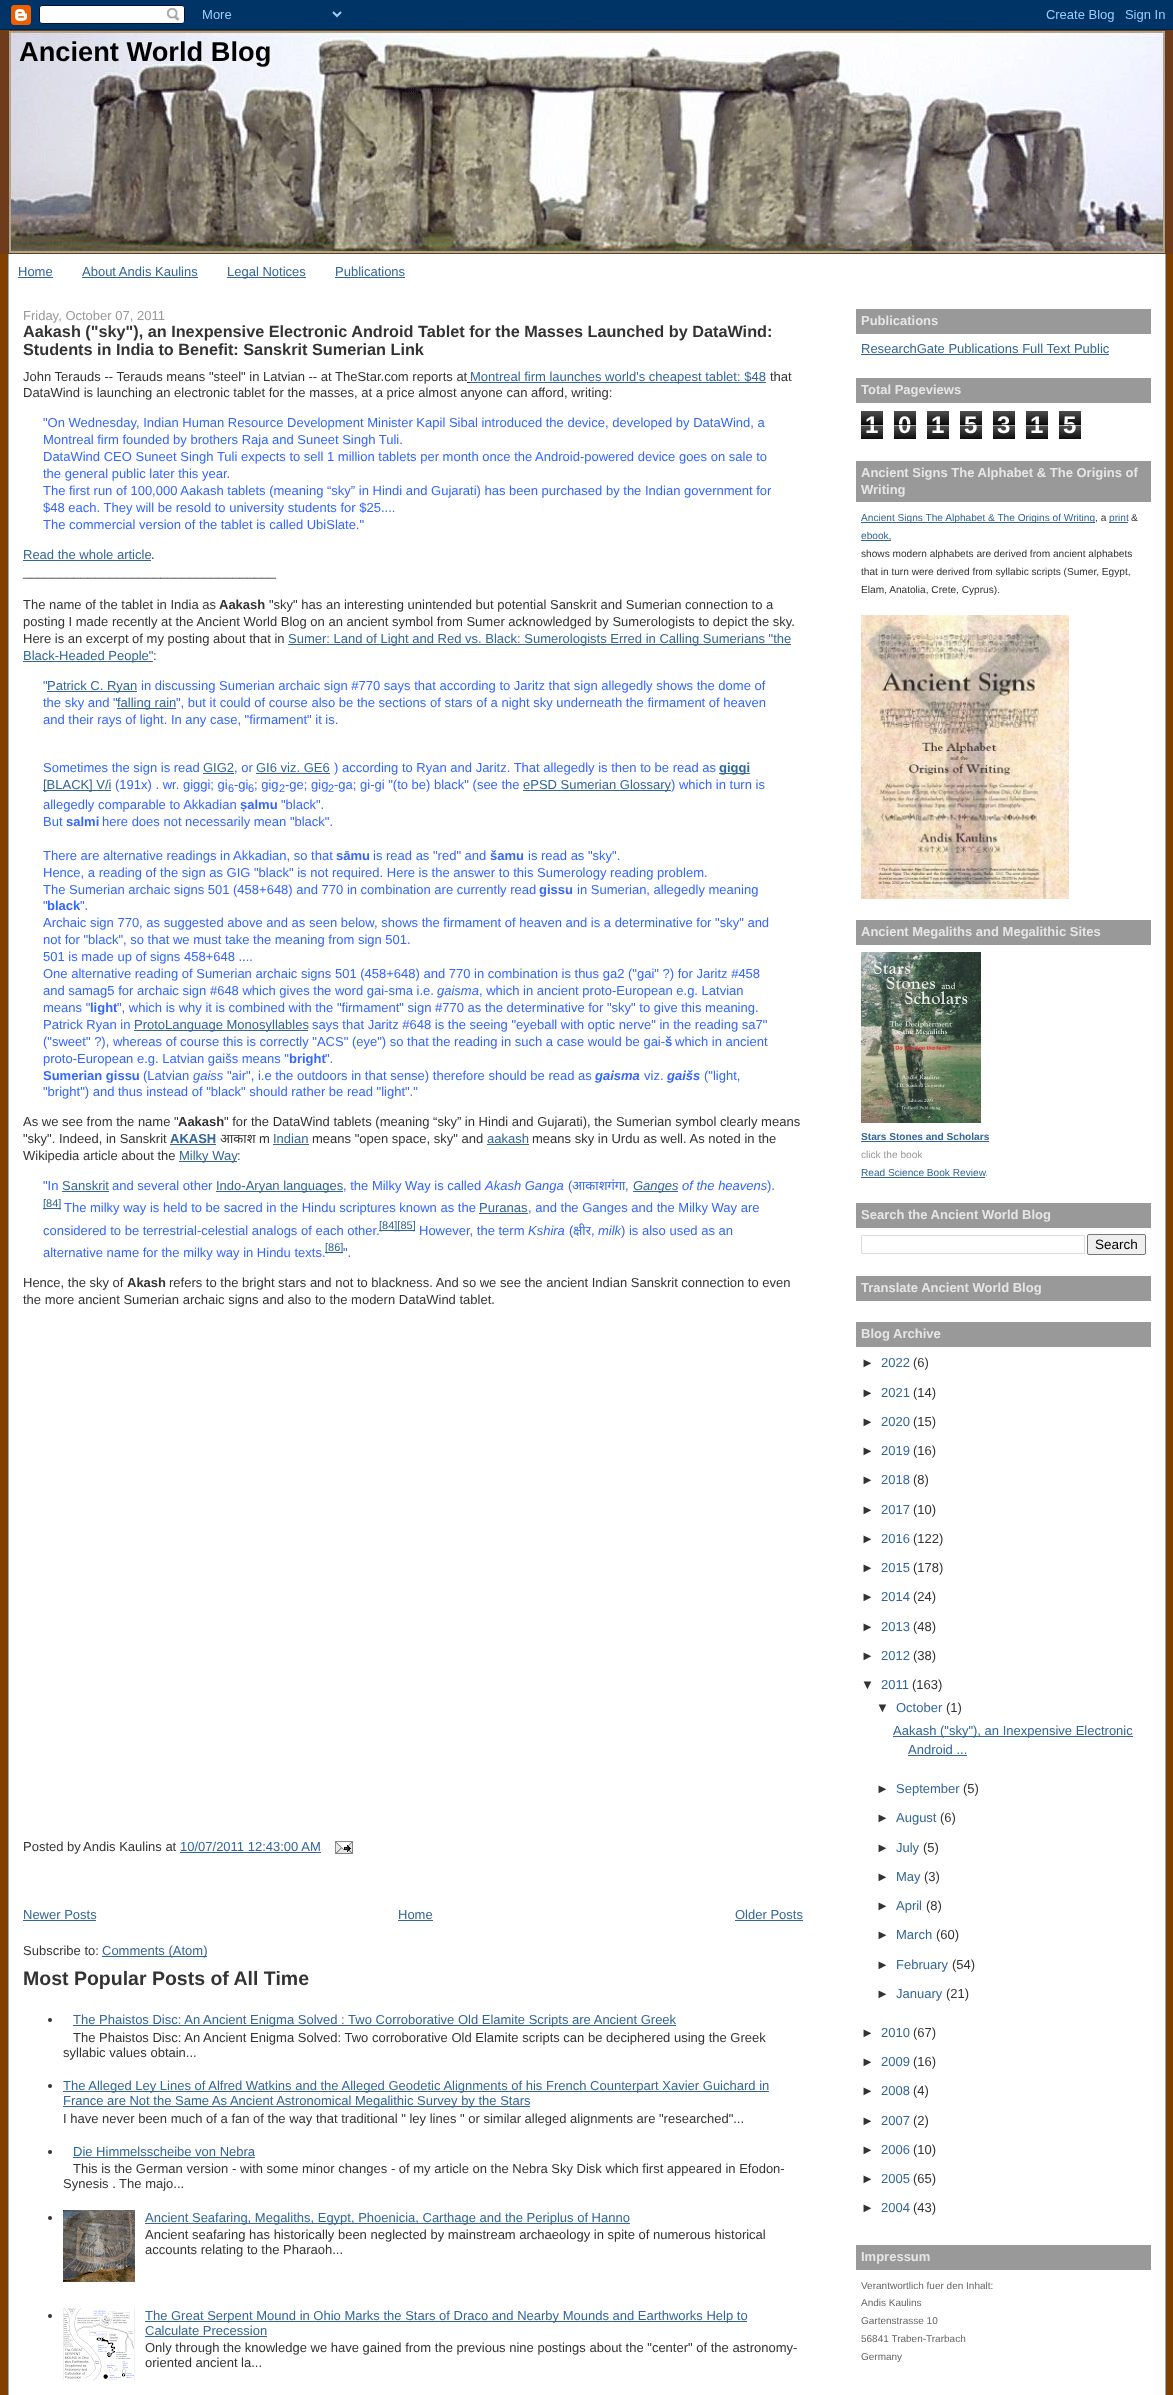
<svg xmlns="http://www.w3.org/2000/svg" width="1173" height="2395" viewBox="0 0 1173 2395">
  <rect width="100%" height="100%" fill="#804000"/>
  <image x="0" y="0" width="1173" height="30" href="img/1.png"/>
  <path d="M0 30h1173v224H0z" fill="#6f3c1b"/>
  <image x="9" y="31" width="1156" height="222" href="img/2.png"/>
  <path d="M9 254h1156v2141H9z" fill="#fff"/>
  <path d="M1165 254h1v2141H1165z" fill="#9daab0"/>
  <path d="M8 254h1v2141H8z" fill="#9daab0"/>
  <path d="M18 277h35v1H18z" fill="#369"/>
  <path d="M82 277h116v1H82z" fill="#369"/>
  <path d="M227 277h79v1H227z" fill="#369"/>
  <path d="M335 277h70v1H335z" fill="#369"/>
  <path d="M470 382h296v1H470z" fill="#369"/>
  <path d="M467 382h3v1H467z" fill="#333"/>
  <path d="M23 560h128v1H23z" fill="#369"/>
  <path d="M288 644h503v1H288z" fill="#369"/>
  <path d="M23 661h130v1H23z" fill="#369"/>
  <path d="M47 691h90v1H47z" fill="#369"/>
  <path d="M117 708h59v1H117z" fill="#369"/>
  <path d="M203 773h31v1H203z" fill="#369"/>
  <path d="M256 773h74v1H256z" fill="#369"/>
  <path d="M719 773h31v1H719z" fill="#369"/>
  <path d="M43 790h3v1H43z" fill="#369"/>
  <path d="M46 790h65v1H46z" fill="#369"/>
  <path d="M523 790h148v1H523z" fill="#369"/>
  <path d="M134 1030h174v1H134z" fill="#369"/>
  <path d="M170 1144h46v1H170z" fill="#369"/>
  <path d="M273 1144h36v1H273z" fill="#369"/>
  <path d="M487 1144h42v1H487z" fill="#369"/>
  <path d="M179 1161h58v1H179z" fill="#369"/>
  <path d="M62 1191h47v1H62z" fill="#369"/>
  <path d="M216 1191h127v1H216z" fill="#369"/>
  <path d="M633 1191h45v1H633z" fill="#369"/>
  <path d="M43 1208h18v1H43z" fill="#369"/>
  <path d="M479 1213h49v1H479z" fill="#369"/>
  <path d="M379 1230h36v1H379z" fill="#369"/>
  <path d="M325 1252h18v1H325z" fill="#369"/>
  <path d="M180 1852h141v1H180z" fill="#369"/>
  <image x="335" y="1841" width="18" height="13" href="img/3.png"/>
  <path d="M23 1920h73v1H23z" fill="#369"/>
  <path d="M398 1920h35v1H398z" fill="#369"/>
  <path d="M735 1920h68v1H735z" fill="#369"/>
  <path d="M102 1956h105v1H102z" fill="#369"/>
  <circle cx="50" cy="2020" r="2" fill="#333"/>
  <path d="M73 2025h603v1H73z" fill="#369"/>
  <circle cx="50" cy="2086" r="2" fill="#333"/>
  <path d="M63 2091h706v1H63z" fill="#369"/>
  <path d="M63 2106h467v1H63z" fill="#369"/>
  <circle cx="50" cy="2152" r="2" fill="#333"/>
  <path d="M73 2157h182v1H73z" fill="#369"/>
  <circle cx="50" cy="2218" r="2" fill="#333"/>
  <image x="63" y="2210" width="72" height="72" href="img/4.png"/>
  <path d="M145 2223h485v1H145z" fill="#369"/>
  <circle cx="50" cy="2316" r="2" fill="#333"/>
  <image x="63" y="2308" width="72" height="72" href="img/5.png"/>
  <path d="M145 2321h602v1H145z" fill="#369"/>
  <path d="M145 2336h122v1H145z" fill="#369"/>
  <path d="M856 309h295v25H856z" fill="#999"/>
  <path d="M861 354h248v1H861z" fill="#369"/>
  <path d="M856 378h295v25H856z" fill="#999"/>
  <image x="861" y="411" width="22" height="28" href="img/6.png"/>
  <image x="894" y="411" width="22" height="28" href="img/6.png"/>
  <image x="927" y="411" width="22" height="28" href="img/6.png"/>
  <image x="960" y="411" width="22" height="28" href="img/6.png"/>
  <image x="993" y="411" width="22" height="28" href="img/6.png"/>
  <image x="1026" y="411" width="22" height="28" href="img/6.png"/>
  <image x="1059" y="411" width="22" height="28" href="img/6.png"/>
  <path d="M856 461h295v41H856z" fill="#999"/>
  <path d="M861 522h234v1H861z" fill="#369"/>
  <path d="M1109 522h19v1H1109z" fill="#369"/>
  <path d="M861 540h30v1H861z" fill="#369"/>
  <image x="861" y="615" width="208" height="284" href="img/7.png"/>
  <path d="M856 920h295v25H856z" fill="#999"/>
  <image x="861" y="952" width="120" height="171" href="img/8.png"/>
  <path d="M861 1141h128v1H861z" fill="#369"/>
  <path d="M861 1177h124v1H861z" fill="#369"/>
  <path d="M856 1203h295v25H856z" fill="#999"/>
  <path d="M861.5 1235.5h223v18H861.5z" fill="none" stroke="#ddd"/>
  <rect x="1087.5" y="1234.5" width="58" height="20" rx="1.5" fill="#efefef" stroke="#767676"/>
  <path d="M856 1276h295v25H856z" fill="#999"/>
  <path d="M856 1322h295v25H856z" fill="#999"/>
  <path d="M893 1736h240v1H893z" fill="#369"/>
  <path d="M908 1755h59v1H908z" fill="#369"/>
  <path d="M856 2245h295v25H856z" fill="#999"/>
  <text x="19" y="61" font-family="Liberation Sans" font-size="27.25" font-weight="bold" fill="#000">Ancient World Blog</text>
  <g font-family="Liberation Sans" font-size="13" fill="#369">
    <text x="18" y="276">Home</text>
    <text x="82" y="276">About Andis Kaulins</text>
    <text x="227" y="276">Legal Notices</text>
    <text x="335" y="276">Publications</text>
  </g>
  <text x="23" y="320" font-family="Liberation Sans" font-size="13" fill="#999">Friday, October 07, 2011</text>
  <g font-family="Liberation Sans" font-size="16.25" font-weight="bold" fill="#333">
    <text x="23" y="337">Aakash ("sky"), an Inexpensive Electronic Android Tablet for the Masses Launched by DataWind:</text>
    <text x="23" y="355">Students in India to Benefit: Sanskrit Sumerian Link</text>
  </g>
  <text x="23" y="381" font-family="Liberation Sans" font-size="13" fill="#333">John Terauds -- Terauds means "steel" in Latvian -- at TheStar.com reports at</text>
  <text x="470" y="381" font-family="Liberation Sans" font-size="13" fill="#369">Montreal firm launches world's cheapest tablet: $48</text>
  <g font-family="Liberation Sans" font-size="13" fill="#333">
    <text x="770" y="381">that</text>
    <text x="23" y="397">DataWind is launching an electronic tablet for the masses, at a price almost anyone can afford, writing:</text>
  </g>
  <g font-family="Liberation Sans" font-size="13" fill="#36f">
    <text x="43" y="427">"On Wednesday, Indian Human Resource Development Minister Kapil Sibal introduced the device, developed by DataWind, a</text>
    <text x="43" y="444">Montreal firm founded by brothers Raja and Suneet Singh Tuli.</text>
    <text x="43" y="461">DataWind CEO Suneet Singh Tuli expects to sell 1 million tablets per month once the Android-powered device goes on sale to</text>
    <text x="43" y="478">the general public later this year.</text>
    <text x="43" y="495">The first run of 100,000 Aakash tablets (meaning “sky” in Hindi and Gujarati) has been purchased by the Indian government for</text>
    <text x="43" y="512">$48 each. They will be resold to university students for $25....</text>
    <text x="43" y="529">The commercial version of the tablet is called UbiSlate."</text>
  </g>
  <text x="23" y="559" font-family="Liberation Sans" font-size="13" fill="#369">Read the whole article</text>
  <g font-family="Liberation Sans" font-size="13" fill="#333">
    <text x="151" y="559">.</text>
    <text x="23" y="576">___________________________________</text>
    <text x="23" y="609">The name of the tablet in India as</text>
  </g>
  <text x="219" y="609" font-family="Liberation Sans" font-size="13" font-weight="bold" fill="#333">Aakash</text>
  <g font-family="Liberation Sans" font-size="13" fill="#333">
    <text x="269" y="609">"sky" has an interesting unintended but potential Sanskrit and Sumerian connection to a</text>
    <text x="23" y="626">posting I made recently at the Ancient World Blog on an ancient symbol from Sumer acknowledged by Sumerologists to depict the sky.</text>
    <text x="23" y="643">Here is an excerpt of my posting about that in</text>
  </g>
  <g font-family="Liberation Sans" font-size="13" fill="#369">
    <text x="288" y="643">Sumer: Land of Light and Red vs. Black: Sumerologists Erred in Calling Sumerians "the</text>
    <text x="23" y="660">Black-Headed People"</text>
  </g>
  <text x="153" y="660" font-family="Liberation Sans" font-size="13" fill="#333">:</text>
  <text x="43" y="690" font-family="Liberation Sans" font-size="13" fill="#36f">"</text>
  <text x="47" y="690" font-family="Liberation Sans" font-size="13" fill="#369">Patrick C. Ryan</text>
  <g font-family="Liberation Sans" font-size="13" fill="#36f">
    <text x="141" y="690">in discussing Sumerian archaic sign #770 says that according to Jaritz that sign allegedly shows the dome of</text>
    <text x="43" y="707">the sky and "</text>
  </g>
  <text x="117" y="707" font-family="Liberation Sans" font-size="13" fill="#369">falling rain</text>
  <g font-family="Liberation Sans" font-size="13" fill="#36f">
    <text x="176" y="707">", but it could of course also be the sections of stars of a night sky underneath the firmament of heaven</text>
    <text x="43" y="724">and their rays of light. In any case, "firmament" it is.</text>
    <text x="43" y="772">Sometimes the sign is read</text>
  </g>
  <text x="203" y="772" font-family="Liberation Sans" font-size="13" fill="#369">GIG2</text>
  <text x="234" y="772" font-family="Liberation Sans" font-size="13" fill="#36f">, or</text>
  <text x="256" y="772" font-family="Liberation Sans" font-size="13" fill="#369">GI6 viz. GE6</text>
  <text x="334" y="772" font-family="Liberation Sans" font-size="13" fill="#36f">) according to Ryan and Jaritz. That allegedly is then to be read as</text>
  <text x="719" y="772" font-family="Liberation Sans" font-size="13" font-weight="bold" fill="#369">giggi</text>
  <g font-family="Liberation Sans" font-size="13" fill="#369">
    <text x="43" y="789">[BLACK</text>
    <text x="89" y="789">] V/i</text>
  </g>
  <text x="115" y="789" font-family="Liberation Sans" font-size="13" fill="#36f">(191x) . wr. giggi; gi</text>
  <text x="228" y="792" font-family="Liberation Sans" font-size="11" fill="#36f">6</text>
  <text x="234" y="789" font-family="Liberation Sans" font-size="13" fill="#36f">-gi</text>
  <text x="248" y="792" font-family="Liberation Sans" font-size="11" fill="#36f">6</text>
  <text x="254" y="789" font-family="Liberation Sans" font-size="13" fill="#36f">; gig</text>
  <text x="279" y="792" font-family="Liberation Sans" font-size="11" fill="#36f">2</text>
  <text x="285" y="789" font-family="Liberation Sans" font-size="13" fill="#36f">-ge; gig</text>
  <text x="328" y="792" font-family="Liberation Sans" font-size="11" fill="#36f">2</text>
  <text x="334" y="789" font-family="Liberation Sans" font-size="13" fill="#36f">-ga; gi-gi "(to be) black" (see the</text>
  <text x="523" y="789" font-family="Liberation Sans" font-size="13" fill="#369">ePSD Sumerian Glossary</text>
  <g font-family="Liberation Sans" font-size="13" fill="#36f">
    <text x="671" y="789">) which in turn is</text>
    <text x="43" y="809">allegedly comparable to Akkadian</text>
  </g>
  <text x="240" y="809" font-family="Liberation Sans" font-size="13" font-weight="bold" fill="#36f">ṣalmu</text>
  <g font-family="Liberation Sans" font-size="13" fill="#36f">
    <text x="281" y="809">"black".</text>
    <text x="43" y="826">But</text>
  </g>
  <text x="66" y="826" font-family="Liberation Sans" font-size="13" font-weight="bold" fill="#36f">salmi</text>
  <g font-family="Liberation Sans" font-size="13" fill="#36f">
    <text x="102" y="826">here does not necessarily mean "black".</text>
    <text x="43" y="860">There are alternative readings in Akkadian, so that</text>
  </g>
  <text x="336" y="860" font-family="Liberation Sans" font-size="13" font-weight="bold" fill="#36f">sāmu</text>
  <text x="373" y="860" font-family="Liberation Sans" font-size="13" fill="#36f">is read as "red" and</text>
  <text x="490" y="860" font-family="Liberation Sans" font-size="13" font-weight="bold" fill="#36f">šamu</text>
  <g font-family="Liberation Sans" font-size="13" fill="#36f">
    <text x="528" y="860">is read as "sky".</text>
    <text x="43" y="877">Hence, a reading of the sign as GIG "black" is not required. Here is the answer to this Sumerology reading problem.</text>
    <text x="43" y="894">The Sumerian archaic signs 501 (458+648) and 770 in combination are currently read</text>
  </g>
  <text x="539" y="894" font-family="Liberation Sans" font-size="13" font-weight="bold" fill="#36f">gissu</text>
  <g font-family="Liberation Sans" font-size="13" fill="#36f">
    <text x="577" y="894">in Sumerian, allegedly meaning</text>
    <text x="43" y="910">"</text>
  </g>
  <text x="47" y="910" font-family="Liberation Sans" font-size="13" font-weight="bold" fill="#36f">black</text>
  <g font-family="Liberation Sans" font-size="13" fill="#36f">
    <text x="80" y="910">".</text>
    <text x="43" y="927">Archaic sign 770, as suggested above and as seen below, shows the firmament of heaven and is a determinative for "sky" and</text>
    <text x="43" y="944">not for "black", so that we must take the meaning from sign 501.</text>
    <text x="43" y="961">501 is made up of signs 458+648 ....</text>
    <text x="43" y="978">One alternative reading of Sumerian archaic signs 501 (458+648) and 770 in combination is thus ga2 ("gai" ?) for Jaritz #458</text>
    <text x="43" y="995">and samag5 for archaic sign #648 which gives the word gai-sma i.e.</text>
  </g>
  <text x="437" y="995" font-family="Liberation Sans" font-size="13" font-style="italic" fill="#36f">gaisma</text>
  <g font-family="Liberation Sans" font-size="13" fill="#36f">
    <text x="479" y="995">, which in ancient proto-European e.g. Latvian</text>
    <text x="43" y="1012">means "</text>
  </g>
  <text x="90" y="1012" font-family="Liberation Sans" font-size="13" font-weight="bold" fill="#36f">light</text>
  <g font-family="Liberation Sans" font-size="13" fill="#36f">
    <text x="117" y="1012">", which is why it is combined with the "firmament" sign #770 as the determinative for "sky" to give this meaning.</text>
    <text x="43" y="1029">Patrick Ryan in</text>
  </g>
  <text x="134" y="1029" font-family="Liberation Sans" font-size="13" fill="#369">ProtoLanguage Monosyllables</text>
  <g font-family="Liberation Sans" font-size="13" fill="#36f">
    <text x="312" y="1029">says that Jaritz #648 is the seeing "eyeball with optic nerve" in the reading sa7"</text>
    <text x="43" y="1046">("sweet" ?), whereas of course this is correctly "ACS" (eye") so that the reading in such a case would be gai-</text>
  </g>
  <text x="665" y="1046" font-family="Liberation Sans" font-size="13" font-weight="bold" fill="#36f">š</text>
  <g font-family="Liberation Sans" font-size="13" fill="#36f">
    <text x="675" y="1046">which in ancient</text>
    <text x="43" y="1063">proto-European e.g. Latvian gaišs means "</text>
  </g>
  <text x="289" y="1063" font-family="Liberation Sans" font-size="13" font-weight="bold" fill="#36f">bright</text>
  <text x="325" y="1063" font-family="Liberation Sans" font-size="13" fill="#36f">".</text>
  <text x="43" y="1080" font-family="Liberation Sans" font-size="13" font-weight="bold" fill="#36f">Sumerian gissu</text>
  <text x="143" y="1080" font-family="Liberation Sans" font-size="13" fill="#36f">(Latvian</text>
  <text x="193" y="1080" font-family="Liberation Sans" font-size="13" font-style="italic" fill="#36f">gaiss</text>
  <text x="227" y="1080" font-family="Liberation Sans" font-size="13" fill="#36f">"air", i.e the outdoors in that sense) therefore should be read as</text>
  <text x="595" y="1080" font-family="Liberation Sans" font-size="13" font-weight="bold" font-style="italic" fill="#36f">gaisma</text>
  <text x="644" y="1080" font-family="Liberation Sans" font-size="13" fill="#36f">viz.</text>
  <text x="667" y="1080" font-family="Liberation Sans" font-size="13" font-weight="bold" font-style="italic" fill="#36f">gaišs</text>
  <g font-family="Liberation Sans" font-size="13" fill="#36f">
    <text x="704" y="1080">("light,</text>
    <text x="43" y="1096">"bright") and thus instead of "black" should rather be read "light"."</text>
  </g>
  <text x="23" y="1126" font-family="Liberation Sans" font-size="13" fill="#333">As we see from the name "</text>
  <text x="178" y="1126" font-family="Liberation Sans" font-size="13" font-weight="bold" fill="#333">Aakash</text>
  <g font-family="Liberation Sans" font-size="13" fill="#333">
    <text x="224" y="1126">" for the DataWind tablets (meaning “sky” in Hindi and Gujarati), the Sumerian symbol clearly means</text>
    <text x="23" y="1143">"sky". Indeed, in Sanskrit</text>
  </g>
  <text x="170" y="1143" font-family="Liberation Sans" font-size="13" font-weight="bold" fill="#369">AKASH</text>
  <text x="220" y="1143" font-family="Noto Sans" font-size="13" fill="#333">आकाश</text>
  <text x="259" y="1143" font-family="Liberation Sans" font-size="13" fill="#333">m</text>
  <text x="273" y="1143" font-family="Liberation Sans" font-size="13" fill="#369">Indian</text>
  <text x="312" y="1143" font-family="Liberation Sans" font-size="13" fill="#333">means "open space, sky" and</text>
  <text x="487" y="1143" font-family="Liberation Sans" font-size="13" fill="#369">aakash</text>
  <g font-family="Liberation Sans" font-size="13" fill="#333">
    <text x="532" y="1143">means sky in Urdu as well. As noted in the</text>
    <text x="23" y="1160">Wikipedia article about the</text>
  </g>
  <text x="179" y="1160" font-family="Liberation Sans" font-size="13" fill="#369">Milky Way</text>
  <text x="237" y="1160" font-family="Liberation Sans" font-size="13" fill="#333">:</text>
  <text x="43" y="1190" font-family="Liberation Sans" font-size="13" fill="#36f">"In</text>
  <text x="62" y="1190" font-family="Liberation Sans" font-size="13" fill="#369">Sanskrit</text>
  <text x="112" y="1190" font-family="Liberation Sans" font-size="13" fill="#36f">and several other</text>
  <text x="216" y="1190" font-family="Liberation Sans" font-size="13" fill="#369">Indo-Aryan languages</text>
  <text x="343" y="1190" font-family="Liberation Sans" font-size="13" fill="#36f">, the Milky Way is called</text>
  <text x="485" y="1190" font-family="Liberation Sans" font-size="13" font-style="italic" fill="#36f">Akash Ganga</text>
  <text x="568" y="1190" font-family="Liberation Sans" font-size="13" fill="#36f">(</text>
  <text x="572" y="1190" font-family="Noto Sans" font-size="13" fill="#36f">आकाशगंगा</text>
  <text x="625" y="1190" font-family="Liberation Sans" font-size="13" fill="#36f">,</text>
  <text x="633" y="1190" font-family="Liberation Sans" font-size="13" font-style="italic" fill="#369">Ganges</text>
  <text x="682" y="1190" font-family="Liberation Sans" font-size="13" font-style="italic" fill="#36f">of the heavens</text>
  <text x="767" y="1190" font-family="Liberation Sans" font-size="13" fill="#36f">).</text>
  <text x="43" y="1207" font-family="Liberation Sans" font-size="11" fill="#369">[84]</text>
  <text x="64" y="1212" font-family="Liberation Sans" font-size="13" fill="#36f">The milky way is held to be sacred in the Hindu scriptures known as the</text>
  <text x="479" y="1212" font-family="Liberation Sans" font-size="13" fill="#369">Puranas</text>
  <g font-family="Liberation Sans" font-size="13" fill="#36f">
    <text x="528" y="1212">, and the Ganges and the Milky Way are</text>
    <text x="43" y="1235">considered to be terrestrial-celestial analogs of each other.</text>
  </g>
  <text x="379" y="1229" font-family="Liberation Sans" font-size="11" fill="#369">[84][85]</text>
  <text x="419" y="1235" font-family="Liberation Sans" font-size="13" fill="#36f">However, the term</text>
  <text x="528" y="1235" font-family="Liberation Sans" font-size="13" font-style="italic" fill="#36f">Kshira</text>
  <text x="569" y="1235" font-family="Liberation Sans" font-size="13" fill="#36f">(</text>
  <text x="573" y="1235" font-family="Noto Sans" font-size="13" fill="#36f">क्षीर</text>
  <text x="591" y="1235" font-family="Liberation Sans" font-size="13" fill="#36f">,</text>
  <text x="598" y="1235" font-family="Liberation Sans" font-size="13" font-style="italic" fill="#36f">milk</text>
  <g font-family="Liberation Sans" font-size="13" fill="#36f">
    <text x="621" y="1235">) is also used as an</text>
    <text x="43" y="1257">alternative name for the milky way in Hindu texts.</text>
  </g>
  <text x="325" y="1251" font-family="Liberation Sans" font-size="11" fill="#369">[86]</text>
  <text x="343" y="1257" font-family="Liberation Sans" font-size="13" fill="#36f">".</text>
  <text x="23" y="1287" font-family="Liberation Sans" font-size="13" fill="#333">Hence, the sky of</text>
  <text x="127" y="1287" font-family="Liberation Sans" font-size="13" font-weight="bold" fill="#333">Akash</text>
  <g font-family="Liberation Sans" font-size="13" fill="#333">
    <text x="169" y="1287">refers to the bright stars and not to blackness. And so we see the ancient Indian Sanskrit connection to even</text>
    <text x="23" y="1304">the more ancient Sumerian archaic signs and also to the modern DataWind tablet.</text>
    <text x="23" y="1851">Posted by</text>
    <text x="83" y="1851">Andis Kaulins at</text>
  </g>
  <g font-family="Liberation Sans" font-size="13" fill="#369">
    <text x="180" y="1851">10/07/2011 12:43:00 AM</text>
    <text x="23" y="1919">Newer Posts</text>
    <text x="398" y="1919">Home</text>
    <text x="735" y="1919">Older Posts</text>
  </g>
  <text x="23" y="1955" font-family="Liberation Sans" font-size="13" fill="#333">Subscribe to:</text>
  <text x="102" y="1955" font-family="Liberation Sans" font-size="13" fill="#369">Comments (Atom)</text>
  <text x="23" y="1985" font-family="Liberation Sans" font-size="19.5" font-weight="bold" fill="#333">Most Popular Posts of All Time</text>
  <text x="73" y="2024" font-family="Liberation Sans" font-size="13" fill="#369">The Phaistos Disc: An Ancient Enigma Solved : Two Corroborative Old Elamite Scripts are Ancient Greek</text>
  <g font-family="Liberation Sans" font-size="13" fill="#333">
    <text x="73" y="2042">The Phaistos Disc: An Ancient Enigma Solved: Two corroborative Old Elamite scripts can be deciphered using the Greek</text>
    <text x="63" y="2057">syllabic values obtain...</text>
  </g>
  <g font-family="Liberation Sans" font-size="13" fill="#369">
    <text x="63" y="2090">The Alleged Ley Lines of Alfred Watkins and the Alleged Geodetic Alignments of his French Counterpart Xavier Guichard in</text>
    <text x="63" y="2105">France are Not the Same As Ancient Astronomical Megalithic Survey by the Stars</text>
  </g>
  <text x="63" y="2123" font-family="Liberation Sans" font-size="13" fill="#333">I have never been much of a fan of the way that traditional " ley lines " or similar alleged alignments are "researched"...</text>
  <text x="73" y="2156" font-family="Liberation Sans" font-size="13" fill="#369">Die Himmelsscheibe von Nebra</text>
  <g font-family="Liberation Sans" font-size="13" fill="#333">
    <text x="73" y="2173">This is the German version - with some minor changes - of my article on the Nebra Sky Disk which first appeared in Efodon-</text>
    <text x="63" y="2188">Synesis . The majo...</text>
  </g>
  <text x="145" y="2222" font-family="Liberation Sans" font-size="13" fill="#369">Ancient Seafaring, Megaliths, Egypt, Phoenicia, Carthage and the Periplus of Hanno</text>
  <g font-family="Liberation Sans" font-size="13" fill="#333">
    <text x="145" y="2239">Ancient seafaring has historically been neglected by mainstream archaeology in spite of numerous historical</text>
    <text x="145" y="2254">accounts relating to the Pharaoh...</text>
  </g>
  <g font-family="Liberation Sans" font-size="13" fill="#369">
    <text x="145" y="2320">The Great Serpent Mound in Ohio Marks the Stars of Draco and Nearby Mounds and Earthworks Help to</text>
    <text x="145" y="2335">Calculate Precession</text>
  </g>
  <g font-family="Liberation Sans" font-size="13" fill="#333">
    <text x="145" y="2352">Only through the knowledge we have gained from the previous nine postings about the "center" of the astronomy-</text>
    <text x="145" y="2367">oriented ancient la...</text>
  </g>
  <text x="861" y="325" font-family="Liberation Sans" font-size="13" font-weight="bold" fill="#e6e6e6">Publications</text>
  <text x="861" y="353" font-family="Liberation Sans" font-size="13" fill="#369">ResearchGate Publications Full Text Public</text>
  <text x="861" y="394" font-family="Liberation Sans" font-size="13" font-weight="bold" fill="#e6e6e6">Total Pageviews</text>
  <text x="865" y="433" font-family="Liberation Sans" font-size="24" font-weight="bold" fill="#fff">1</text>
  <path d="M861 424h22v1H861z" fill="#000000a6"/>
  <path d="M861 425h22v1H861z" fill="#ffffffa6"/>
  <text x="898" y="433" font-family="Liberation Sans" font-size="24" font-weight="bold" fill="#fff">0</text>
  <path d="M894 424h22v1H894z" fill="#000000a6"/>
  <path d="M894 425h22v1H894z" fill="#ffffffa6"/>
  <text x="931" y="433" font-family="Liberation Sans" font-size="24" font-weight="bold" fill="#fff">1</text>
  <path d="M927 424h22v1H927z" fill="#000000a6"/>
  <path d="M927 425h22v1H927z" fill="#ffffffa6"/>
  <text x="964" y="433" font-family="Liberation Sans" font-size="24" font-weight="bold" fill="#fff">5</text>
  <path d="M960 424h22v1H960z" fill="#000000a6"/>
  <path d="M960 425h22v1H960z" fill="#ffffffa6"/>
  <text x="997" y="433" font-family="Liberation Sans" font-size="24" font-weight="bold" fill="#fff">3</text>
  <path d="M993 424h22v1H993z" fill="#000000a6"/>
  <path d="M993 425h22v1H993z" fill="#ffffffa6"/>
  <text x="1030" y="433" font-family="Liberation Sans" font-size="24" font-weight="bold" fill="#fff">1</text>
  <path d="M1026 424h22v1H1026z" fill="#000000a6"/>
  <path d="M1026 425h22v1H1026z" fill="#ffffffa6"/>
  <text x="1063" y="433" font-family="Liberation Sans" font-size="24" font-weight="bold" fill="#fff">5</text>
  <path d="M1059 424h22v1H1059z" fill="#000000a6"/>
  <path d="M1059 425h22v1H1059z" fill="#ffffffa6"/>
  <g font-family="Liberation Sans" font-size="13" font-weight="bold" fill="#e6e6e6">
    <text x="861" y="477">Ancient Signs The Alphabet &amp; The Origins of</text>
    <text x="861" y="494">Writing</text>
  </g>
  <text x="861" y="521" font-family="Liberation Sans" font-size="10.15" fill="#369">Ancient Signs The Alphabet &amp; The Origins of Writing</text>
  <text x="1095" y="521" font-family="Liberation Sans" font-size="10.15" fill="#333">, a</text>
  <text x="1109" y="521" font-family="Liberation Sans" font-size="10.15" fill="#369">print</text>
  <text x="1131" y="521" font-family="Liberation Sans" font-size="10.15" fill="#333">&amp;</text>
  <text x="861" y="539" font-family="Liberation Sans" font-size="10.15" fill="#369">ebook,</text>
  <g font-family="Liberation Sans" font-size="10.15" fill="#333">
    <text x="861" y="557">shows modern alphabets are derived from ancient alphabets</text>
    <text x="861" y="575">that in turn were derived from syllabic scripts (Sumer, Egypt,</text>
    <text x="861" y="593">Elam, Anatolia, Crete, Cyprus).</text>
  </g>
  <text x="861" y="936" font-family="Liberation Sans" font-size="13" font-weight="bold" fill="#e6e6e6">Ancient Megaliths and Megalithic Sites</text>
  <text x="861" y="1140" font-family="Liberation Sans" font-size="10.15" font-weight="bold" fill="#369">Stars Stones and Scholars</text>
  <text x="861" y="1158" font-family="Liberation Sans" font-size="10.15" fill="#999">click the book</text>
  <text x="861" y="1176" font-family="Liberation Sans" font-size="10.15" fill="#369">Read Science Book Review</text>
  <text x="985" y="1176" font-family="Liberation Sans" font-size="10.15" fill="#999">.</text>
  <text x="861" y="1219" font-family="Liberation Sans" font-size="13" font-weight="bold" fill="#e6e6e6">Search the Ancient World Blog</text>
  <text x="1095" y="1249" font-family="Liberation Sans" font-size="13.5" fill="#000">Search</text>
  <g font-family="Liberation Sans" font-size="13" font-weight="bold" fill="#e6e6e6">
    <text x="861" y="1292">Translate Ancient World Blog</text>
    <text x="861" y="1338">Blog Archive</text>
  </g>
  <text x="861" y="1367" font-family="Liberation Sans" font-size="13" fill="#333">►</text>
  <text x="881" y="1367" font-family="Liberation Sans" font-size="13" fill="#369">2022</text>
  <g font-family="Liberation Sans" font-size="13" fill="#333">
    <text x="913" y="1367">(6)</text>
    <text x="861" y="1397">►</text>
  </g>
  <text x="881" y="1397" font-family="Liberation Sans" font-size="13" fill="#369">2021</text>
  <g font-family="Liberation Sans" font-size="13" fill="#333">
    <text x="913" y="1397">(14)</text>
    <text x="861" y="1426">►</text>
  </g>
  <text x="881" y="1426" font-family="Liberation Sans" font-size="13" fill="#369">2020</text>
  <g font-family="Liberation Sans" font-size="13" fill="#333">
    <text x="913" y="1426">(15)</text>
    <text x="861" y="1455">►</text>
  </g>
  <text x="881" y="1455" font-family="Liberation Sans" font-size="13" fill="#369">2019</text>
  <g font-family="Liberation Sans" font-size="13" fill="#333">
    <text x="913" y="1455">(16)</text>
    <text x="861" y="1484">►</text>
  </g>
  <text x="881" y="1484" font-family="Liberation Sans" font-size="13" fill="#369">2018</text>
  <g font-family="Liberation Sans" font-size="13" fill="#333">
    <text x="913" y="1484">(8)</text>
    <text x="861" y="1514">►</text>
  </g>
  <text x="881" y="1514" font-family="Liberation Sans" font-size="13" fill="#369">2017</text>
  <g font-family="Liberation Sans" font-size="13" fill="#333">
    <text x="913" y="1514">(10)</text>
    <text x="861" y="1543">►</text>
  </g>
  <text x="881" y="1543" font-family="Liberation Sans" font-size="13" fill="#369">2016</text>
  <g font-family="Liberation Sans" font-size="13" fill="#333">
    <text x="913" y="1543">(122)</text>
    <text x="861" y="1572">►</text>
  </g>
  <text x="881" y="1572" font-family="Liberation Sans" font-size="13" fill="#369">2015</text>
  <g font-family="Liberation Sans" font-size="13" fill="#333">
    <text x="913" y="1572">(178)</text>
    <text x="861" y="1601">►</text>
  </g>
  <text x="881" y="1601" font-family="Liberation Sans" font-size="13" fill="#369">2014</text>
  <g font-family="Liberation Sans" font-size="13" fill="#333">
    <text x="913" y="1601">(24)</text>
    <text x="861" y="1631">►</text>
  </g>
  <text x="881" y="1631" font-family="Liberation Sans" font-size="13" fill="#369">2013</text>
  <g font-family="Liberation Sans" font-size="13" fill="#333">
    <text x="913" y="1631">(48)</text>
    <text x="861" y="1660">►</text>
  </g>
  <text x="881" y="1660" font-family="Liberation Sans" font-size="13" fill="#369">2012</text>
  <g font-family="Liberation Sans" font-size="13" fill="#333">
    <text x="913" y="1660">(38)</text>
    <text x="861" y="1689">▼</text>
  </g>
  <text x="881" y="1689" font-family="Liberation Sans" font-size="13" fill="#369">2011</text>
  <g font-family="Liberation Sans" font-size="13" fill="#333">
    <text x="912" y="1689">(163)</text>
    <text x="876" y="1712">▼</text>
  </g>
  <text x="896" y="1712" font-family="Liberation Sans" font-size="13" fill="#369">October</text>
  <text x="946" y="1712" font-family="Liberation Sans" font-size="13" fill="#333">(1)</text>
  <g font-family="Liberation Sans" font-size="13" fill="#369">
    <text x="893" y="1735">Aakash ("sky"), an Inexpensive Electronic</text>
    <text x="908" y="1754">Android ...</text>
  </g>
  <text x="876" y="1793" font-family="Liberation Sans" font-size="13" fill="#333">►</text>
  <text x="896" y="1793" font-family="Liberation Sans" font-size="13" fill="#369">September</text>
  <g font-family="Liberation Sans" font-size="13" fill="#333">
    <text x="963" y="1793">(5)</text>
    <text x="876" y="1822">►</text>
  </g>
  <text x="896" y="1822" font-family="Liberation Sans" font-size="13" fill="#369">August</text>
  <g font-family="Liberation Sans" font-size="13" fill="#333">
    <text x="940" y="1822">(6)</text>
    <text x="876" y="1852">►</text>
  </g>
  <text x="896" y="1852" font-family="Liberation Sans" font-size="13" fill="#369">July</text>
  <g font-family="Liberation Sans" font-size="13" fill="#333">
    <text x="923" y="1852">(5)</text>
    <text x="876" y="1881">►</text>
  </g>
  <text x="896" y="1881" font-family="Liberation Sans" font-size="13" fill="#369">May</text>
  <g font-family="Liberation Sans" font-size="13" fill="#333">
    <text x="924" y="1881">(3)</text>
    <text x="876" y="1910">►</text>
  </g>
  <text x="896" y="1910" font-family="Liberation Sans" font-size="13" fill="#369">April</text>
  <g font-family="Liberation Sans" font-size="13" fill="#333">
    <text x="926" y="1910">(8)</text>
    <text x="876" y="1939">►</text>
  </g>
  <text x="896" y="1939" font-family="Liberation Sans" font-size="13" fill="#369">March</text>
  <g font-family="Liberation Sans" font-size="13" fill="#333">
    <text x="936" y="1939">(60)</text>
    <text x="876" y="1969">►</text>
  </g>
  <text x="896" y="1969" font-family="Liberation Sans" font-size="13" fill="#369">February</text>
  <g font-family="Liberation Sans" font-size="13" fill="#333">
    <text x="952" y="1969">(54)</text>
    <text x="876" y="1998">►</text>
  </g>
  <text x="896" y="1998" font-family="Liberation Sans" font-size="13" fill="#369">January</text>
  <g font-family="Liberation Sans" font-size="13" fill="#333">
    <text x="946" y="1998">(21)</text>
    <text x="861" y="2037">►</text>
  </g>
  <text x="881" y="2037" font-family="Liberation Sans" font-size="13" fill="#369">2010</text>
  <g font-family="Liberation Sans" font-size="13" fill="#333">
    <text x="913" y="2037">(67)</text>
    <text x="861" y="2066">►</text>
  </g>
  <text x="881" y="2066" font-family="Liberation Sans" font-size="13" fill="#369">2009</text>
  <g font-family="Liberation Sans" font-size="13" fill="#333">
    <text x="913" y="2066">(16)</text>
    <text x="861" y="2095">►</text>
  </g>
  <text x="881" y="2095" font-family="Liberation Sans" font-size="13" fill="#369">2008</text>
  <g font-family="Liberation Sans" font-size="13" fill="#333">
    <text x="913" y="2095">(4)</text>
    <text x="861" y="2125">►</text>
  </g>
  <text x="881" y="2125" font-family="Liberation Sans" font-size="13" fill="#369">2007</text>
  <g font-family="Liberation Sans" font-size="13" fill="#333">
    <text x="913" y="2125">(2)</text>
    <text x="861" y="2154">►</text>
  </g>
  <text x="881" y="2154" font-family="Liberation Sans" font-size="13" fill="#369">2006</text>
  <g font-family="Liberation Sans" font-size="13" fill="#333">
    <text x="913" y="2154">(10)</text>
    <text x="861" y="2183">►</text>
  </g>
  <text x="881" y="2183" font-family="Liberation Sans" font-size="13" fill="#369">2005</text>
  <g font-family="Liberation Sans" font-size="13" fill="#333">
    <text x="913" y="2183">(65)</text>
    <text x="861" y="2212">►</text>
  </g>
  <text x="881" y="2212" font-family="Liberation Sans" font-size="13" fill="#369">2004</text>
  <text x="913" y="2212" font-family="Liberation Sans" font-size="13" fill="#333">(43)</text>
  <text x="861" y="2261" font-family="Liberation Sans" font-size="13" font-weight="bold" fill="#e6e6e6">Impressum</text>
  <g font-family="Liberation Sans" font-size="10" fill="#666">
    <text x="861" y="2289">Verantwortlich fuer den Inhalt:</text>
    <text x="861" y="2306">Andis Kaulins</text>
    <text x="861" y="2324">Gartenstrasse 10</text>
    <text x="861" y="2342">56841 Traben-Trarbach</text>
    <text x="861" y="2360">Germany</text>
  </g>
</svg>
